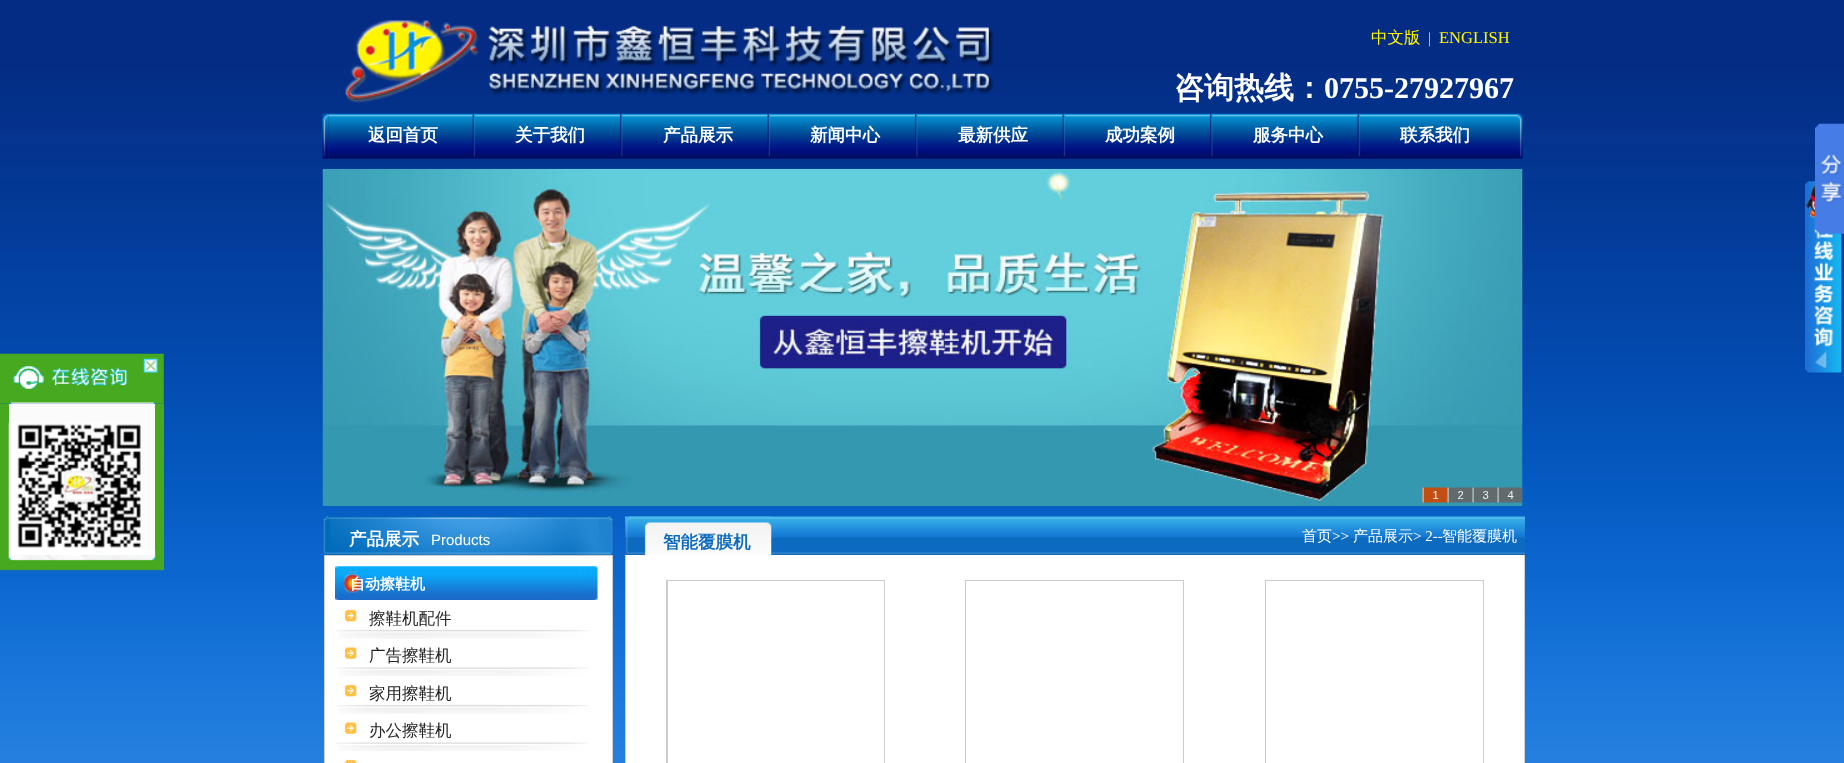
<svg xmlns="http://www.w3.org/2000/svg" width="1844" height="763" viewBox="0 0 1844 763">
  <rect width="100%" height="100%" fill="#fff"/>
  <image x="0" y="0" width="1844" height="763" href="img/1.png"/>
  <image x="345" y="20" width="649" height="83" href="img/2.png"/>
  <image x="322" y="113" width="7" height="46" href="img/3.png"/>
  <image x="328" y="113" width="1187" height="46" href="img/4.png"/>
  <image x="1515" y="113" width="8" height="46" href="img/5.png"/>
  <image x="322" y="168" width="1201" height="339" href="img/6.png"/>
  <image x="1805" y="181" width="37" height="192" href="img/8.png"/>
  <image x="1815" y="123" width="29" height="111" href="img/7.png"/>
  <image x="0" y="353" width="164" height="51" href="img/9.png"/>
  <image x="143" y="358" width="15" height="15" href="img/10.png"/>
  <path d="M9 404h146v146H9z" fill="#fbfbfb"/>
  <path d="M155 404h9v146H155z" fill="#47a920"/>
  <path d="M0 404h9v146H0z" fill="#47a920"/>
  <image x="0" y="550" width="164" height="21" href="img/12.png"/>
  <image x="8" y="422" width="133" height="129" href="img/11.png"/>
  <image x="323" y="516" width="290" height="39" href="img/13.png"/>
  <path d="M324.5 555.5h288v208H324.5z" fill="#fff" stroke="#d1d0d0"/>
  <image x="335" y="566" width="263" height="34" href="img/14.png"/>
  <image x="335" y="609" width="254" height="30" href="img/15.png"/>
  <image x="335" y="647" width="254" height="29" href="img/16.png"/>
  <image x="335" y="684" width="254" height="30" href="img/15.png"/>
  <image x="335" y="722" width="254" height="29" href="img/16.png"/>
  <image x="344" y="759" width="13" height="4" href="img/17.png"/>
  <image x="625" y="516" width="900" height="39" href="img/18.png"/>
  <image x="625" y="516" width="147" height="39" href="img/19.png"/>
  <path d="M626 555h898v208H626z" fill="#fff"/>
  <path d="M1524 555h1v208H1524z" fill="#d1d0d0"/>
  <path d="M625 555h1v208H625z" fill="#d1d0d0"/>
  <path d="M666 580h219v183H666z" fill="#ccc"/>
  <path d="M668 581h216v182H668z" fill="#fff"/>
  <path d="M965 580h219v183H965z" fill="#ccc"/>
  <path d="M966 581h217v182H966z" fill="#fff"/>
  <path d="M1265 580h219v183H1265z" fill="#ccc"/>
  <path d="M1266 581h217v182H1266z" fill="#fff"/>
  <text x="1371" y="43" font-family="WenQuanYi Zen Hei" font-size="16.5" font-weight="500" fill="#fff500">中文版</text>
  <text x="1428" y="43" font-family="Liberation Serif" font-size="15" fill="#fff500">|</text>
  <text x="1439" y="43" font-family="Liberation Serif" font-size="16.5" fill="#fff500">ENGLISH</text>
  <text x="1174" y="98" font-family="WenQuanYi Zen Hei" font-size="30" font-weight="bold" fill="#fff">咨询热线：</text>
  <text x="1324" y="98" font-family="Liberation Serif" font-size="30" font-weight="bold" fill="#fff">0755-27927967</text>
  <g font-family="WenQuanYi Zen Hei" font-size="17.5" font-weight="bold" fill="#fff">
    <text x="368" y="141">返回首页</text>
    <text x="515" y="141">关于我们</text>
    <text x="663" y="141">产品展示</text>
    <text x="810" y="141">新闻中心</text>
    <text x="958" y="141">最新供应</text>
    <text x="1105" y="141">成功案例</text>
    <text x="1253" y="141">服务中心</text>
    <text x="1400" y="141">联系我们</text>
    <text x="349" y="545">产品展示</text>
  </g>
  <text x="431" y="545" font-family="Liberation Sans" font-size="15" fill="#fff">Products</text>
  <text x="350" y="589" font-family="WenQuanYi Zen Hei" font-size="15" font-weight="bold" fill="#fff">自动擦鞋机</text>
  <g font-family="WenQuanYi Zen Hei" font-size="16.5" font-weight="500" fill="#242424">
    <text x="369" y="624">擦鞋机配件</text>
    <text x="369" y="661">广告擦鞋机</text>
    <text x="369" y="699">家用擦鞋机</text>
    <text x="369" y="736">办公擦鞋机</text>
  </g>
  <text x="663" y="548" font-family="WenQuanYi Zen Hei" font-size="17.5" font-weight="bold" fill="#0c6abf">智能覆膜机</text>
  <text x="1302" y="541" font-family="WenQuanYi Zen Hei" font-size="15" font-weight="500" fill="#fff">首页</text>
  <text x="1332" y="541" font-family="Liberation Serif" font-size="15" fill="#fff">&gt;&gt;</text>
  <text x="1353" y="541" font-family="WenQuanYi Zen Hei" font-size="15" font-weight="500" fill="#fff">产品展示</text>
  <text x="1413" y="541" font-family="Liberation Serif" font-size="15" fill="#fff">&gt; 2--</text>
  <text x="1442" y="541" font-family="WenQuanYi Zen Hei" font-size="15" font-weight="500" fill="#fff">智能覆膜机</text>
</svg>
